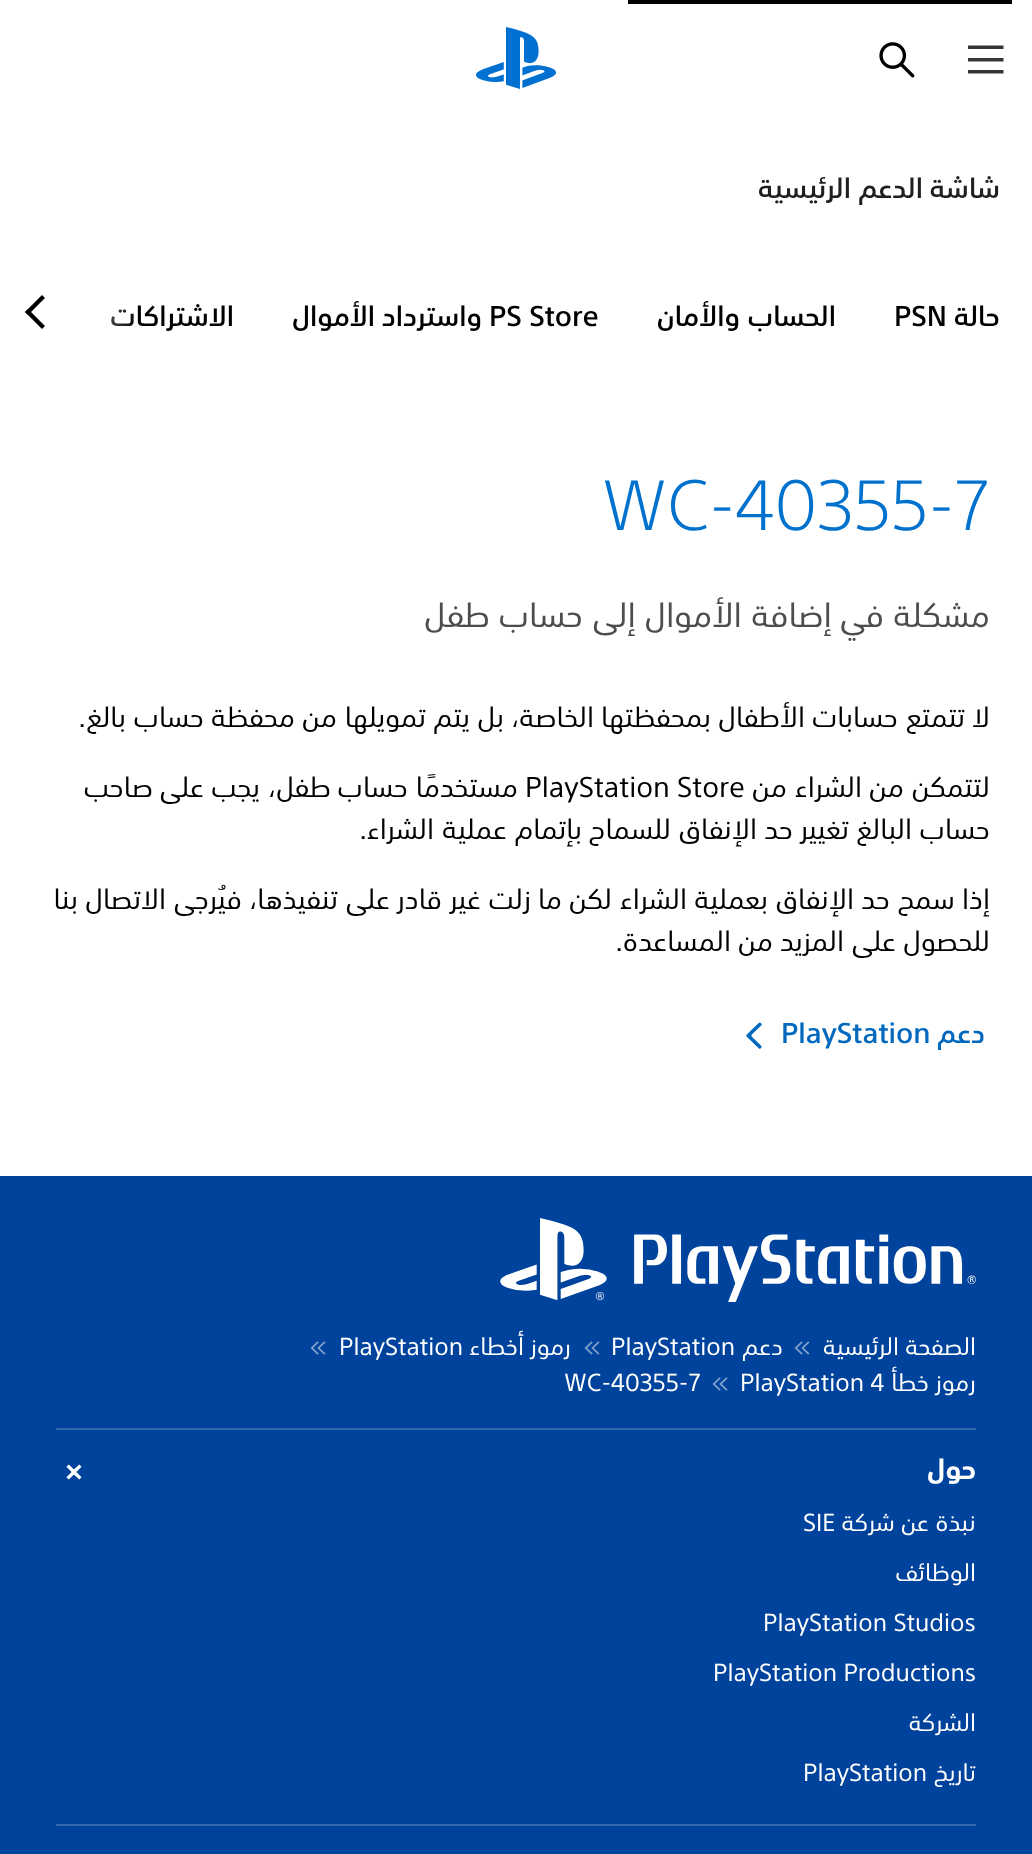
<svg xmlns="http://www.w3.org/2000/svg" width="1032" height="1854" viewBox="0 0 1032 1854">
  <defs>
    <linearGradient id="g1" gradientUnits="userSpaceOnUse" x1="0" y1="312" x2="140" y2="312"><stop offset="0.2" stop-color="#fff"/><stop offset="1" stop-color="#fff" stop-opacity="0"/></linearGradient>
  </defs>
  <rect width="100%" height="100%" fill="#fff"/>
  <path d="M630 -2h380v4H630z" fill="none" stroke="#000" stroke-width="4"/>
  <path d="M968 45.5H1003.5V49H968ZM968 58H1003.5V61.5H968ZM968 70H1003.5V73.5H968Z" fill="#363636"/>
  <image x="879" y="42" width="36" height="36" href="img/1.png"/>
  <image x="476" y="27" width="80" height="62" href="img/2.png"/>
  <path d="M28 309L45 326L42 329L25 312Z" fill="#000"/>
  <path d="M42 295L45 298L28 315L25 312Z" fill="#000"/>
  <image x="746" y="1022" width="16" height="27" href="img/3.png"/>
  <path d="M0 1176h1032v678H0z" fill="#00439c"/>
  <image x="500" y="1218" width="476" height="84" href="img/4.png"/>
  <image x="794" y="1341" width="16" height="14" href="img/5.png"/>
  <image x="584" y="1341" width="16" height="14" href="img/5.png"/>
  <image x="310" y="1341" width="16" height="14" href="img/5.png"/>
  <image x="712" y="1377" width="16" height="14" href="img/5.png"/>
  <path d="M56 1428h920v2H56z" fill="#3369b0"/>
  <image x="66" y="1464" width="16" height="16" href="img/6.png"/>
  <path d="M56 1824h920v2H56z" fill="#3369b0"/>
  <g font-family="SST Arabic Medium" font-size="28" font-weight="500" direction="rtl" fill="#1f1f1f">
    <text x="1000" y="198">شاشة</text>
    <text x="923" y="198">الدعم</text>
    <text x="851" y="198">الرئيسية</text>
  </g>
  <text x="1000" y="326" font-family="SST Arabic Medium" font-size="28" font-weight="500" direction="rtl" fill="#000">حالة</text>
  <text x="894" y="326" font-family="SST" font-size="28" font-weight="500" fill="#000">PSN</text>
  <g font-family="SST Arabic Medium" font-size="28" font-weight="500" direction="rtl" fill="#000">
    <text x="836" y="326">الحساب</text>
    <text x="740" y="326">والأمان</text>
  </g>
  <text x="489" y="326" font-family="SST" font-size="28" font-weight="500" fill="#000">PS Store</text>
  <g font-family="SST Arabic Medium" font-size="28" font-weight="500" direction="rtl" fill="#000">
    <text x="482" y="326">واسترداد</text>
    <text x="375" y="326">الأموال</text>
    <text x="234" y="326">الاشتراكات</text>
  </g>
  <path d="M111 309h23v17H111z" fill="url(#g1)"/>
  <text x="602" y="530" font-family="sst" font-size="69.5" font-weight="300" fill="#0072ce">WC-40355-7</text>
  <g font-family="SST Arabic" font-size="33.5" direction="rtl" fill="#4d4d4d">
    <text x="990" y="627">مشكلة</text>
    <text x="884" y="627">في</text>
    <text x="832" y="627">إضافة</text>
    <text x="742" y="627">الأموال</text>
    <text x="636" y="627">إلى</text>
    <text x="583" y="627">حساب</text>
    <text x="490" y="627">طفل</text>
  </g>
  <g font-family="SST Arabic" font-size="28" direction="rtl" fill="#000">
    <text x="990" y="727">لا</text>
    <text x="965" y="727">تتمتع</text>
    <text x="898" y="727">حسابات</text>
    <text x="805" y="727">الأطفال</text>
    <text x="711" y="727">بمحفظتها</text>
    <text x="594" y="727">الخاصة،</text>
    <text x="504" y="727">بل</text>
    <text x="470" y="727">يتم</text>
    <text x="426" y="727">تمويلها</text>
    <text x="337" y="727">من</text>
    <text x="295" y="727">محفظة</text>
    <text x="204" y="727">حساب</text>
    <text x="126" y="727">بالغ</text>
  </g>
  <text x="86" y="727" font-family="sst" font-size="28" direction="rtl" fill="#000">.</text>
  <g font-family="SST Arabic" font-size="28" direction="rtl" fill="#000">
    <text x="990" y="797">لتتمكن</text>
    <text x="904" y="797">من</text>
    <text x="862" y="797">الشراء</text>
    <text x="787" y="797">من</text>
  </g>
  <text x="525" y="797" font-family="sst" font-size="28" fill="#000">PlayStation Store</text>
  <g font-family="SST Arabic" font-size="28" direction="rtl" fill="#000">
    <text x="518" y="797">مستخدمًا</text>
    <text x="408" y="797">حساب</text>
    <text x="331" y="797">طفل،</text>
    <text x="260" y="797">يجب</text>
    <text x="204" y="797">على</text>
    <text x="153" y="797">صاحب</text>
    <text x="990" y="839">حساب</text>
    <text x="912" y="839">البالغ</text>
    <text x="849" y="839">تغيير</text>
    <text x="793" y="839">حد</text>
    <text x="757" y="839">الإنفاق</text>
    <text x="671" y="839">للسماح</text>
    <text x="582" y="839">بإتمام</text>
    <text x="507" y="839">عملية</text>
    <text x="434" y="839">الشراء</text>
  </g>
  <text x="367" y="839" font-family="sst" font-size="28" direction="rtl" fill="#000">.</text>
  <g font-family="SST Arabic" font-size="28" direction="rtl" fill="#000">
    <text x="990" y="909">إذا</text>
    <text x="955" y="909">سمح</text>
    <text x="890" y="909">حد</text>
    <text x="854" y="909">الإنفاق</text>
    <text x="768" y="909">بعملية</text>
    <text x="687" y="909">الشراء</text>
    <text x="612" y="909">لكن</text>
    <text x="562" y="909">ما</text>
    <text x="531" y="909">زلت</text>
    <text x="481" y="909">غير</text>
    <text x="442" y="909">قادر</text>
    <text x="390" y="909">على</text>
    <text x="338" y="909">تنفيذها،</text>
    <text x="242" y="909">فيُرجى</text>
    <text x="166" y="909">الاتصال</text>
    <text x="78" y="909">بنا</text>
    <text x="990" y="951">للحصول</text>
    <text x="896" y="951">على</text>
    <text x="844" y="951">المزيد</text>
    <text x="773" y="951">من</text>
    <text x="731" y="951">المساعدة</text>
  </g>
  <text x="623" y="951" font-family="sst" font-size="28" direction="rtl" fill="#000">.</text>
  <text x="985" y="1043" font-family="SST Arabic Medium" font-size="28" font-weight="500" direction="rtl" fill="#0068bd">دعم</text>
  <text x="781" y="1043" font-family="SST" font-size="28" font-weight="500" fill="#0068bd">PlayStation</text>
  <g font-family="SST Arabic" font-size="24" direction="rtl" fill="#fff">
    <text x="976" y="1355">الصفحة</text>
    <text x="899" y="1355">الرئيسية</text>
    <text x="783" y="1355">دعم</text>
  </g>
  <text x="611" y="1355" font-family="sst" font-size="24" fill="#fff">PlayStation</text>
  <g font-family="SST Arabic" font-size="24" direction="rtl" fill="#fff">
    <text x="571" y="1355">رموز</text>
    <text x="524" y="1355">أخطاء</text>
  </g>
  <text x="339" y="1355" font-family="sst" font-size="24" fill="#fff">PlayStation</text>
  <g font-family="SST Arabic" font-size="24" direction="rtl" fill="#fff">
    <text x="976" y="1391">رموز</text>
    <text x="929" y="1391">خطأ</text>
  </g>
  <g font-family="sst" font-size="24" fill="#fff">
    <text x="740" y="1391">PlayStation 4</text>
    <text x="564" y="1391">WC-40355-7</text>
  </g>
  <text x="976" y="1479" font-family="SST Arabic" font-size="28" font-weight="bold" direction="rtl" fill="#fff">حول</text>
  <g font-family="SST Arabic" font-size="24" direction="rtl" fill="#fff">
    <text x="976" y="1531">نبذة</text>
    <text x="929" y="1531">عن</text>
    <text x="895" y="1531">شركة</text>
  </g>
  <text x="803" y="1531" font-family="sst" font-size="24" fill="#fff">SIE</text>
  <text x="976" y="1581" font-family="SST Arabic" font-size="24" direction="rtl" fill="#fff">الوظائف</text>
  <g font-family="sst" font-size="24" fill="#fff">
    <text x="763" y="1631">PlayStation Studios</text>
    <text x="713" y="1681">PlayStation Productions</text>
  </g>
  <g font-family="SST Arabic" font-size="24" direction="rtl" fill="#fff">
    <text x="976" y="1731">الشركة</text>
    <text x="976" y="1781">تاريخ</text>
  </g>
  <text x="803" y="1781" font-family="sst" font-size="24" fill="#fff">PlayStation</text>
</svg>
